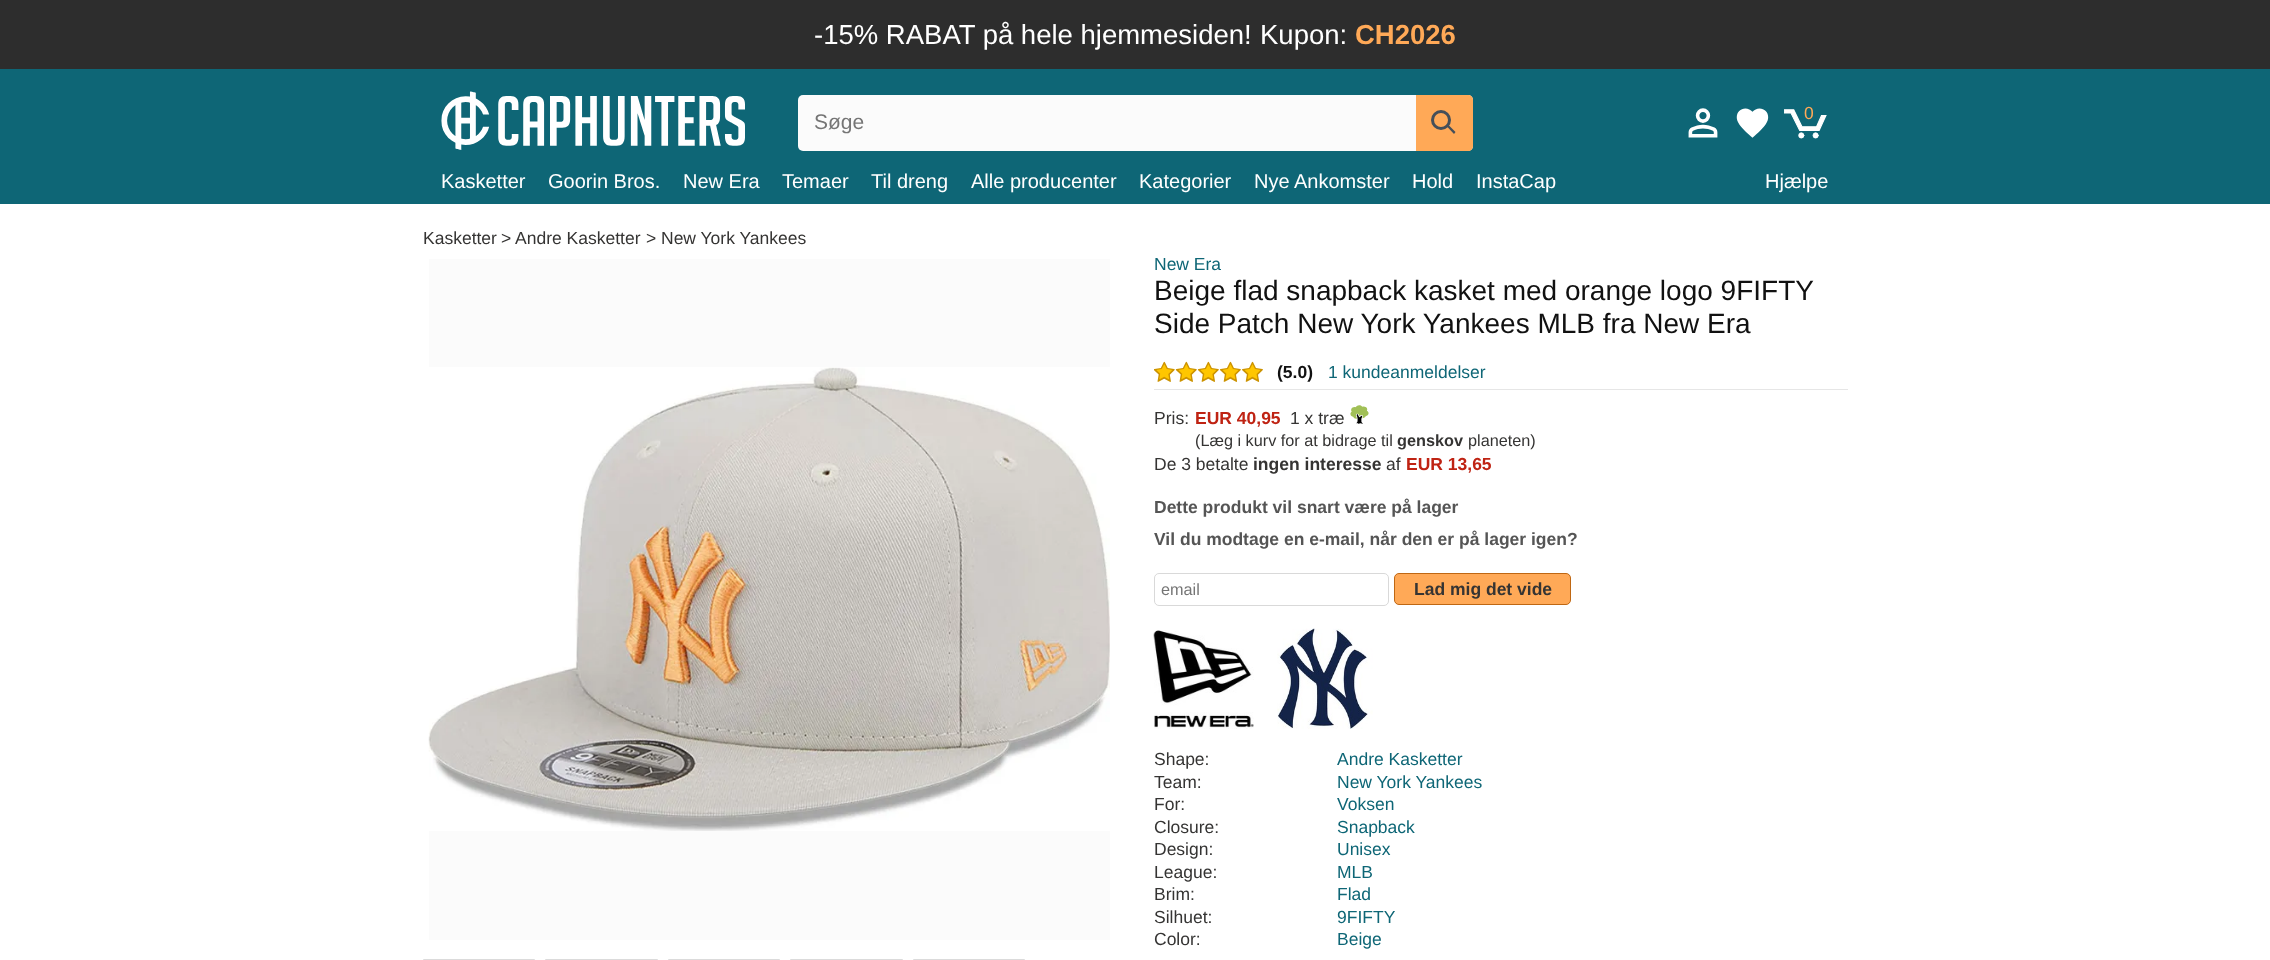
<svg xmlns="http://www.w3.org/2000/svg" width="2270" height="960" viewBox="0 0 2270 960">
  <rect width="100%" height="100%" fill="#fff"/>
  <path d="M0 0h2270v69H0z" fill="#2d2d2d"/>
  <path d="M0 69h2270v135H0z" fill="#0e6676"/>
  <image x="441" y="91" width="304" height="59" href="img/1.png"/>
  <rect x="798" y="95" width="675" height="56" rx="5" fill="#fbfbfb"/>
  <path d="M1416 95H1468C1471 95 1473 97 1473 100V146C1473 149 1471 151 1468 151H1416Z" fill="#ffa957"/>
  <circle cx="1441" cy="120" r="8.5" fill="none" stroke="#454f59" stroke-width="3"/>
  <path d="M1448.5 125L1455.5 132L1454 134L1447 126.5Z" fill="#454f59"/>
  <image x="1688" y="108" width="30" height="30" href="img/2.png"/>
  <image x="1736" y="108" width="33" height="30" href="img/3.png"/>
  <image x="1784" y="109" width="43" height="30" href="img/4.png"/>
  <path d="M429 259h681v681H429z" fill="#fbfbfb"/>
  <image x="428" y="367" width="682" height="464" href="img/5.png"/>
  <path d="M423.5 959.5h111v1H423.5z" fill="none" stroke="#dbdbdb"/>
  <path d="M545.5 959.5h112v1H545.5z" fill="none" stroke="#dbdbdb"/>
  <path d="M668.5 959.5h111v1H668.5z" fill="none" stroke="#dbdbdb"/>
  <path d="M790.5 959.5h112v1H790.5z" fill="none" stroke="#dbdbdb"/>
  <path d="M913.5 959.5h111v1H913.5z" fill="none" stroke="#dbdbdb"/>
  <image x="1154" y="361" width="109" height="21" href="img/6.png"/>
  <path d="M1154 389h694v1H1154z" fill="#e6e6e6"/>
  <image x="1350" y="405" width="19" height="19" href="img/7.png"/>
  <rect x="1154.5" y="573.5" width="234" height="32" rx="4.5" fill="none" stroke="#d9d9d9"/>
  <rect x="1394.5" y="573.5" width="176" height="31" rx="4.5" fill="#ffa957" stroke="#bf6713"/>
  <image x="1153" y="630" width="101" height="99" href="img/8.png"/>
  <image x="1277" y="628" width="96" height="101" href="img/9.png"/>
  <g font-family="Liberation Sans" font-size="27.5" fill="#fff">
    <text x="814" y="44">-15% RABAT på hele hjemmesiden!</text>
    <text x="1260" y="44">Kupon:</text>
  </g>
  <text x="1355" y="44" font-family="Liberation Sans" font-size="27.5" font-weight="bold" fill="#ffa957">CH2026</text>
  <text x="814" y="129" font-family="Liberation Sans" font-size="21" fill="#757575">Søge</text>
  <text x="1804" y="119" font-family="Liberation Sans" font-size="17.5" fill="#ffa957">0</text>
  <g font-family="Liberation Sans" font-size="20" fill="#fff">
    <text x="441" y="188">Kasketter</text>
    <text x="548" y="188">Goorin Bros.</text>
    <text x="683" y="188">New Era</text>
    <text x="782" y="188">Temaer</text>
    <text x="871" y="188">Til dreng</text>
    <text x="971" y="188">Alle producenter</text>
    <text x="1139" y="188">Kategorier</text>
    <text x="1254" y="188">Nye Ankomster</text>
    <text x="1412" y="188">Hold</text>
    <text x="1476" y="188">InstaCap</text>
    <text x="1765" y="188">Hjælpe</text>
  </g>
  <g font-family="Liberation Sans" font-size="17.5" fill="#353433">
    <text x="423" y="244">Kasketter</text>
    <text x="501" y="244">&gt;</text>
    <text x="515" y="244">Andre Kasketter</text>
    <text x="646" y="244">&gt;</text>
    <text x="661" y="244">New York Yankees</text>
  </g>
  <text x="1154" y="270" font-family="Liberation Sans" font-size="17.5" fill="#0e6676">New Era</text>
  <g font-family="Liberation Sans" font-size="28" fill="#111">
    <text x="1154" y="300">Beige flad snapback kasket med orange logo 9FIFTY</text>
    <text x="1154" y="333">Side Patch New York Yankees MLB fra New Era</text>
  </g>
  <text x="1277" y="378" font-family="Liberation Sans" font-size="17.5" font-weight="bold" fill="#111">(5.0)</text>
  <text x="1328" y="378" font-family="Liberation Sans" font-size="17.5" fill="#0e6676">1 kundeanmeldelser</text>
  <text x="1154" y="424" font-family="Liberation Sans" font-size="17.5" fill="#353433">Pris:</text>
  <text x="1195" y="424" font-family="Liberation Sans" font-size="17.5" font-weight="bold" fill="#bf2313">EUR 40,95</text>
  <text x="1290" y="424" font-family="Liberation Sans" font-size="17.5" fill="#353433">1 x træ</text>
  <text x="1195" y="446" font-family="Liberation Sans" font-size="16.25" fill="#353433">(Læg i kurv for at bidrage til</text>
  <text x="1397" y="446" font-family="Liberation Sans" font-size="16.25" font-weight="bold" fill="#353433">genskov</text>
  <text x="1468" y="446" font-family="Liberation Sans" font-size="16.25" fill="#353433">planeten)</text>
  <text x="1154" y="470" font-family="Liberation Sans" font-size="17.5" fill="#353433">De 3 betalte</text>
  <text x="1253" y="470" font-family="Liberation Sans" font-size="17.5" font-weight="bold" fill="#353433">ingen interesse</text>
  <text x="1386" y="470" font-family="Liberation Sans" font-size="17.5" fill="#353433">af</text>
  <text x="1406" y="470" font-family="Liberation Sans" font-size="17.5" font-weight="bold" fill="#bf2313">EUR 13,65</text>
  <g font-family="Liberation Sans" font-size="17.5" font-weight="bold" fill="#555">
    <text x="1154" y="513">Dette produkt vil snart være på lager</text>
    <text x="1154" y="545">Vil du modtage en e-mail, når den er på lager igen?</text>
  </g>
  <text x="1161" y="595" font-family="Liberation Sans" font-size="16.25" fill="#757575">email</text>
  <text x="1414" y="595" font-family="Liberation Sans" font-size="17.5" font-weight="bold" fill="#353433">Lad mig det vide</text>
  <text x="1154" y="765" font-family="Liberation Sans" font-size="17.5" fill="#353433">Shape:</text>
  <text x="1337" y="765" font-family="Liberation Sans" font-size="17.5" fill="#0e6676">Andre Kasketter</text>
  <text x="1154" y="788" font-family="Liberation Sans" font-size="17.5" fill="#353433">Team:</text>
  <text x="1337" y="788" font-family="Liberation Sans" font-size="17.5" fill="#0e6676">New York Yankees</text>
  <text x="1154" y="810" font-family="Liberation Sans" font-size="17.5" fill="#353433">For:</text>
  <text x="1337" y="810" font-family="Liberation Sans" font-size="17.5" fill="#0e6676">Voksen</text>
  <text x="1154" y="833" font-family="Liberation Sans" font-size="17.5" fill="#353433">Closure:</text>
  <text x="1337" y="833" font-family="Liberation Sans" font-size="17.5" fill="#0e6676">Snapback</text>
  <text x="1154" y="855" font-family="Liberation Sans" font-size="17.5" fill="#353433">Design:</text>
  <text x="1337" y="855" font-family="Liberation Sans" font-size="17.5" fill="#0e6676">Unisex</text>
  <text x="1154" y="878" font-family="Liberation Sans" font-size="17.5" fill="#353433">League:</text>
  <text x="1337" y="878" font-family="Liberation Sans" font-size="17.5" fill="#0e6676">MLB</text>
  <text x="1154" y="900" font-family="Liberation Sans" font-size="17.5" fill="#353433">Brim:</text>
  <text x="1337" y="900" font-family="Liberation Sans" font-size="17.5" fill="#0e6676">Flad</text>
  <text x="1154" y="923" font-family="Liberation Sans" font-size="17.5" fill="#353433">Silhuet:</text>
  <text x="1337" y="923" font-family="Liberation Sans" font-size="17.5" fill="#0e6676">9FIFTY</text>
  <text x="1154" y="945" font-family="Liberation Sans" font-size="17.5" fill="#353433">Color:</text>
  <text x="1337" y="945" font-family="Liberation Sans" font-size="17.5" fill="#0e6676">Beige</text>
</svg>
